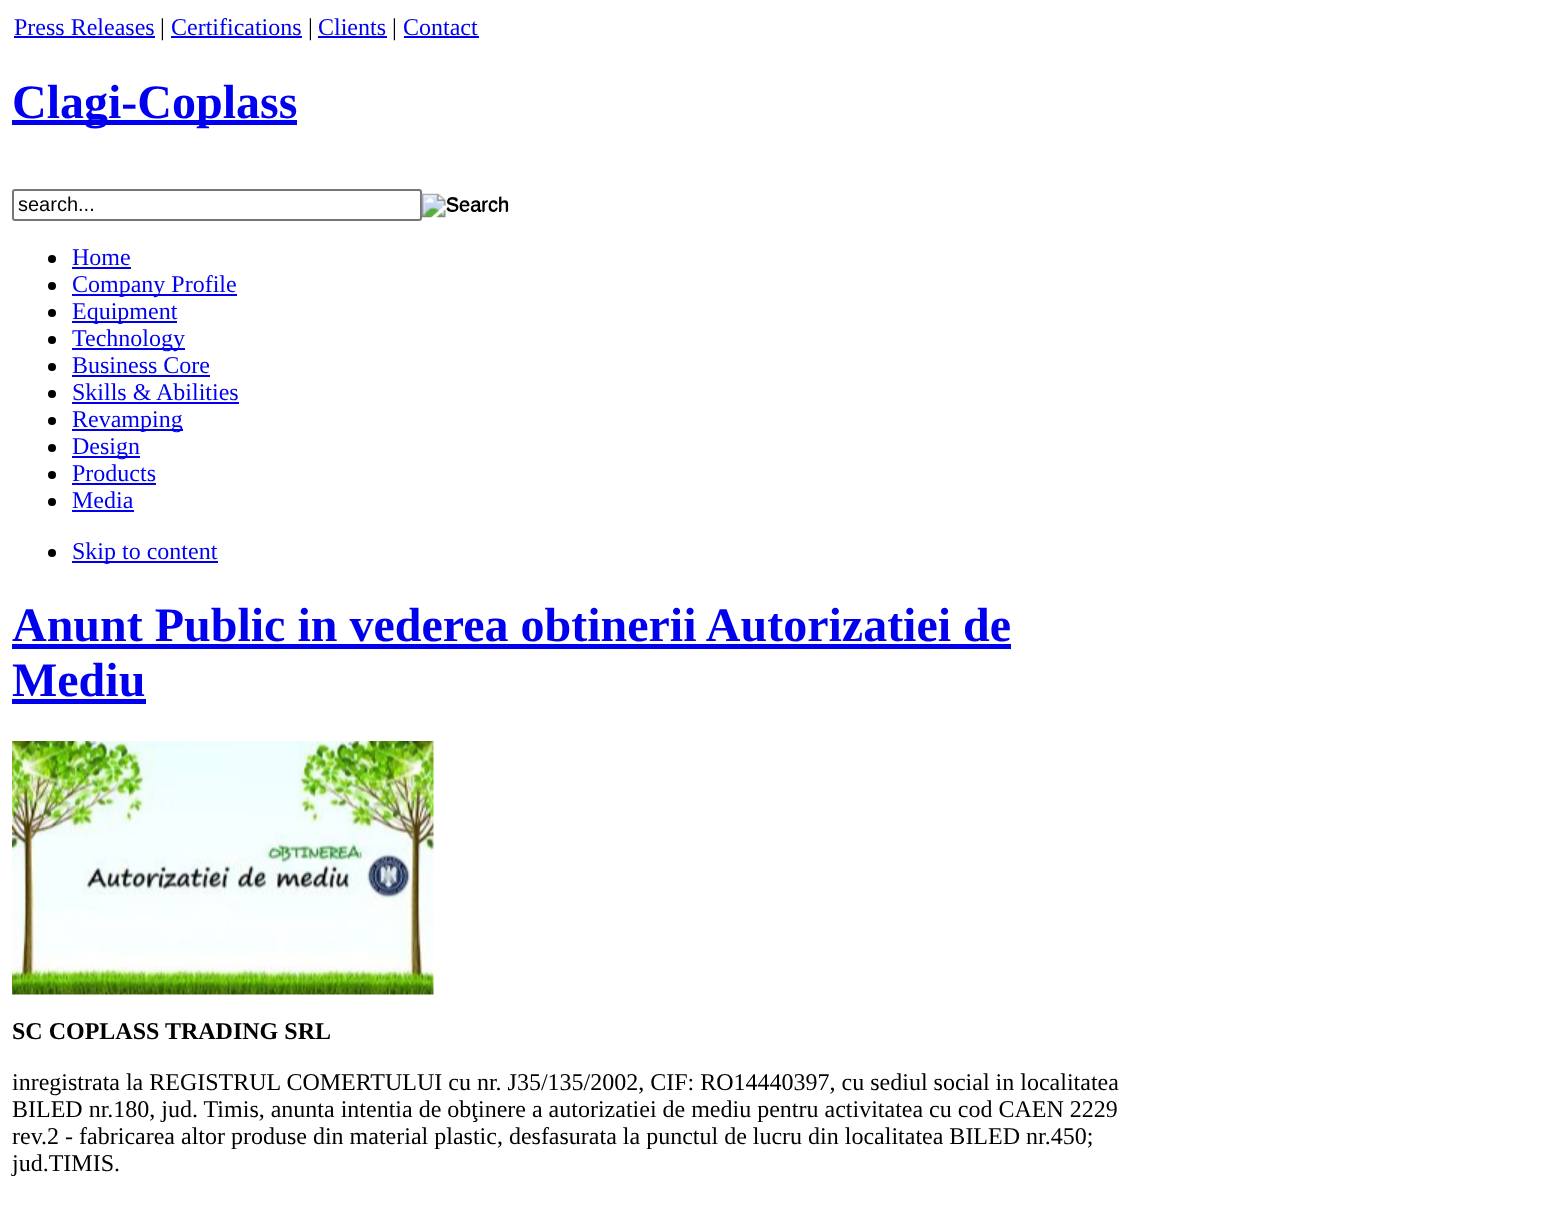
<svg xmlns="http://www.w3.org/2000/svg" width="1559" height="1230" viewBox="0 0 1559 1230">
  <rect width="100%" height="100%" fill="#fff"/>
  <path d="M14 36h141v2H14z" fill="#00e"/>
  <path d="M171 36h131v2H171z" fill="#00e"/>
  <path d="M318 36h69v2H318z" fill="#00e"/>
  <path d="M404 36h75v2H404z" fill="#00e"/>
  <path d="M12 120h285v5H12z" fill="#00e"/>
  <rect x="13" y="190" width="408" height="30" rx="2" fill="none" stroke="#767676" stroke-width="2"/>
  <image x="421" y="193" width="87" height="25" href="img/1.png"/>
  <circle cx="52" cy="259" r="4" fill="#000"/>
  <path d="M72 267h59v2H72z" fill="#00e"/>
  <circle cx="52" cy="286" r="4" fill="#000"/>
  <path d="M72 294h165v2H72z" fill="#00e"/>
  <circle cx="52" cy="313" r="4" fill="#000"/>
  <path d="M72 321h105v2H72z" fill="#00e"/>
  <circle cx="52" cy="340" r="4" fill="#000"/>
  <path d="M72 348h113v2H72z" fill="#00e"/>
  <circle cx="52" cy="367" r="4" fill="#000"/>
  <path d="M72 375h138v2H72z" fill="#00e"/>
  <circle cx="52" cy="394" r="4" fill="#000"/>
  <path d="M72 402h167v2H72z" fill="#00e"/>
  <circle cx="52" cy="421" r="4" fill="#000"/>
  <path d="M72 429h111v2H72z" fill="#00e"/>
  <circle cx="52" cy="448" r="4" fill="#000"/>
  <path d="M72 456h68v2H72z" fill="#00e"/>
  <circle cx="52" cy="475" r="4" fill="#000"/>
  <path d="M72 483h84v2H72z" fill="#00e"/>
  <circle cx="52" cy="502" r="4" fill="#000"/>
  <path d="M72 510h62v2H72z" fill="#00e"/>
  <circle cx="52" cy="553" r="4" fill="#000"/>
  <path d="M72 561h146v2H72z" fill="#00e"/>
  <path d="M12 644h999v5H12z" fill="#00e"/>
  <path d="M12 699h134v5H12z" fill="#00e"/>
  <image x="12" y="741" width="422" height="254" href="img/2.png"/>
  <text x="14" y="35" font-family="Liberation Serif" font-size="24" fill="#00e">Press Releases</text>
  <text x="160" y="35" font-family="Liberation Serif" font-size="24" fill="#000">|</text>
  <text x="171" y="35" font-family="Liberation Serif" font-size="24" fill="#00e">Certifications</text>
  <text x="308" y="35" font-family="Liberation Serif" font-size="24" fill="#000">|</text>
  <text x="318" y="35" font-family="Liberation Serif" font-size="24" fill="#00e">Clients</text>
  <text x="392" y="35" font-family="Liberation Serif" font-size="24" fill="#000">|</text>
  <text x="403" y="35" font-family="Liberation Serif" font-size="24" fill="#00e">Contact</text>
  <text x="12" y="118" font-family="Liberation Serif" font-size="48" font-weight="bold" fill="#00e">Clagi-Coplass</text>
  <g font-family="Liberation Sans" font-size="20" fill="#000">
    <text x="18" y="211">search...</text>
    <text x="446" y="211">Search</text>
  </g>
  <g font-family="Liberation Serif" font-size="24" fill="#00e">
    <text x="72" y="265">Home</text>
    <text x="72" y="292">Company Profile</text>
    <text x="72" y="319">Equipment</text>
    <text x="72" y="346">Technology</text>
    <text x="72" y="373">Business Core</text>
    <text x="72" y="400">Skills &amp; Abilities</text>
    <text x="72" y="427">Revamping</text>
    <text x="72" y="454">Design</text>
    <text x="72" y="481">Products</text>
    <text x="72" y="508">Media</text>
    <text x="72" y="559">Skip to content</text>
  </g>
  <g font-family="Liberation Serif" font-size="48" font-weight="bold" fill="#00e">
    <text x="12" y="641">Anunt Public in vederea obtinerii Autorizatiei de</text>
    <text x="12" y="696">Mediu</text>
  </g>
  <text x="12" y="1039" font-family="Liberation Serif" font-size="24" font-weight="bold" fill="#000">SC COPLASS TRADING SRL</text>
  <g font-family="Liberation Serif" font-size="24" fill="#000">
    <text x="12" y="1090">inregistrata la REGISTRUL COMERTULUI cu nr. J35/135/2002, CIF: RO14440397, cu sediul social in localitatea</text>
    <text x="12" y="1117">BILED nr.180, jud. Timis, anunta intentia de obţinere a autorizatiei de mediu pentru activitatea cu cod CAEN 2229</text>
    <text x="12" y="1144">rev.2 - fabricarea altor produse din material plastic, desfasurata la punctul de lucru din localitatea BILED nr.450;</text>
    <text x="12" y="1171">jud.TIMIS.</text>
  </g>
</svg>
